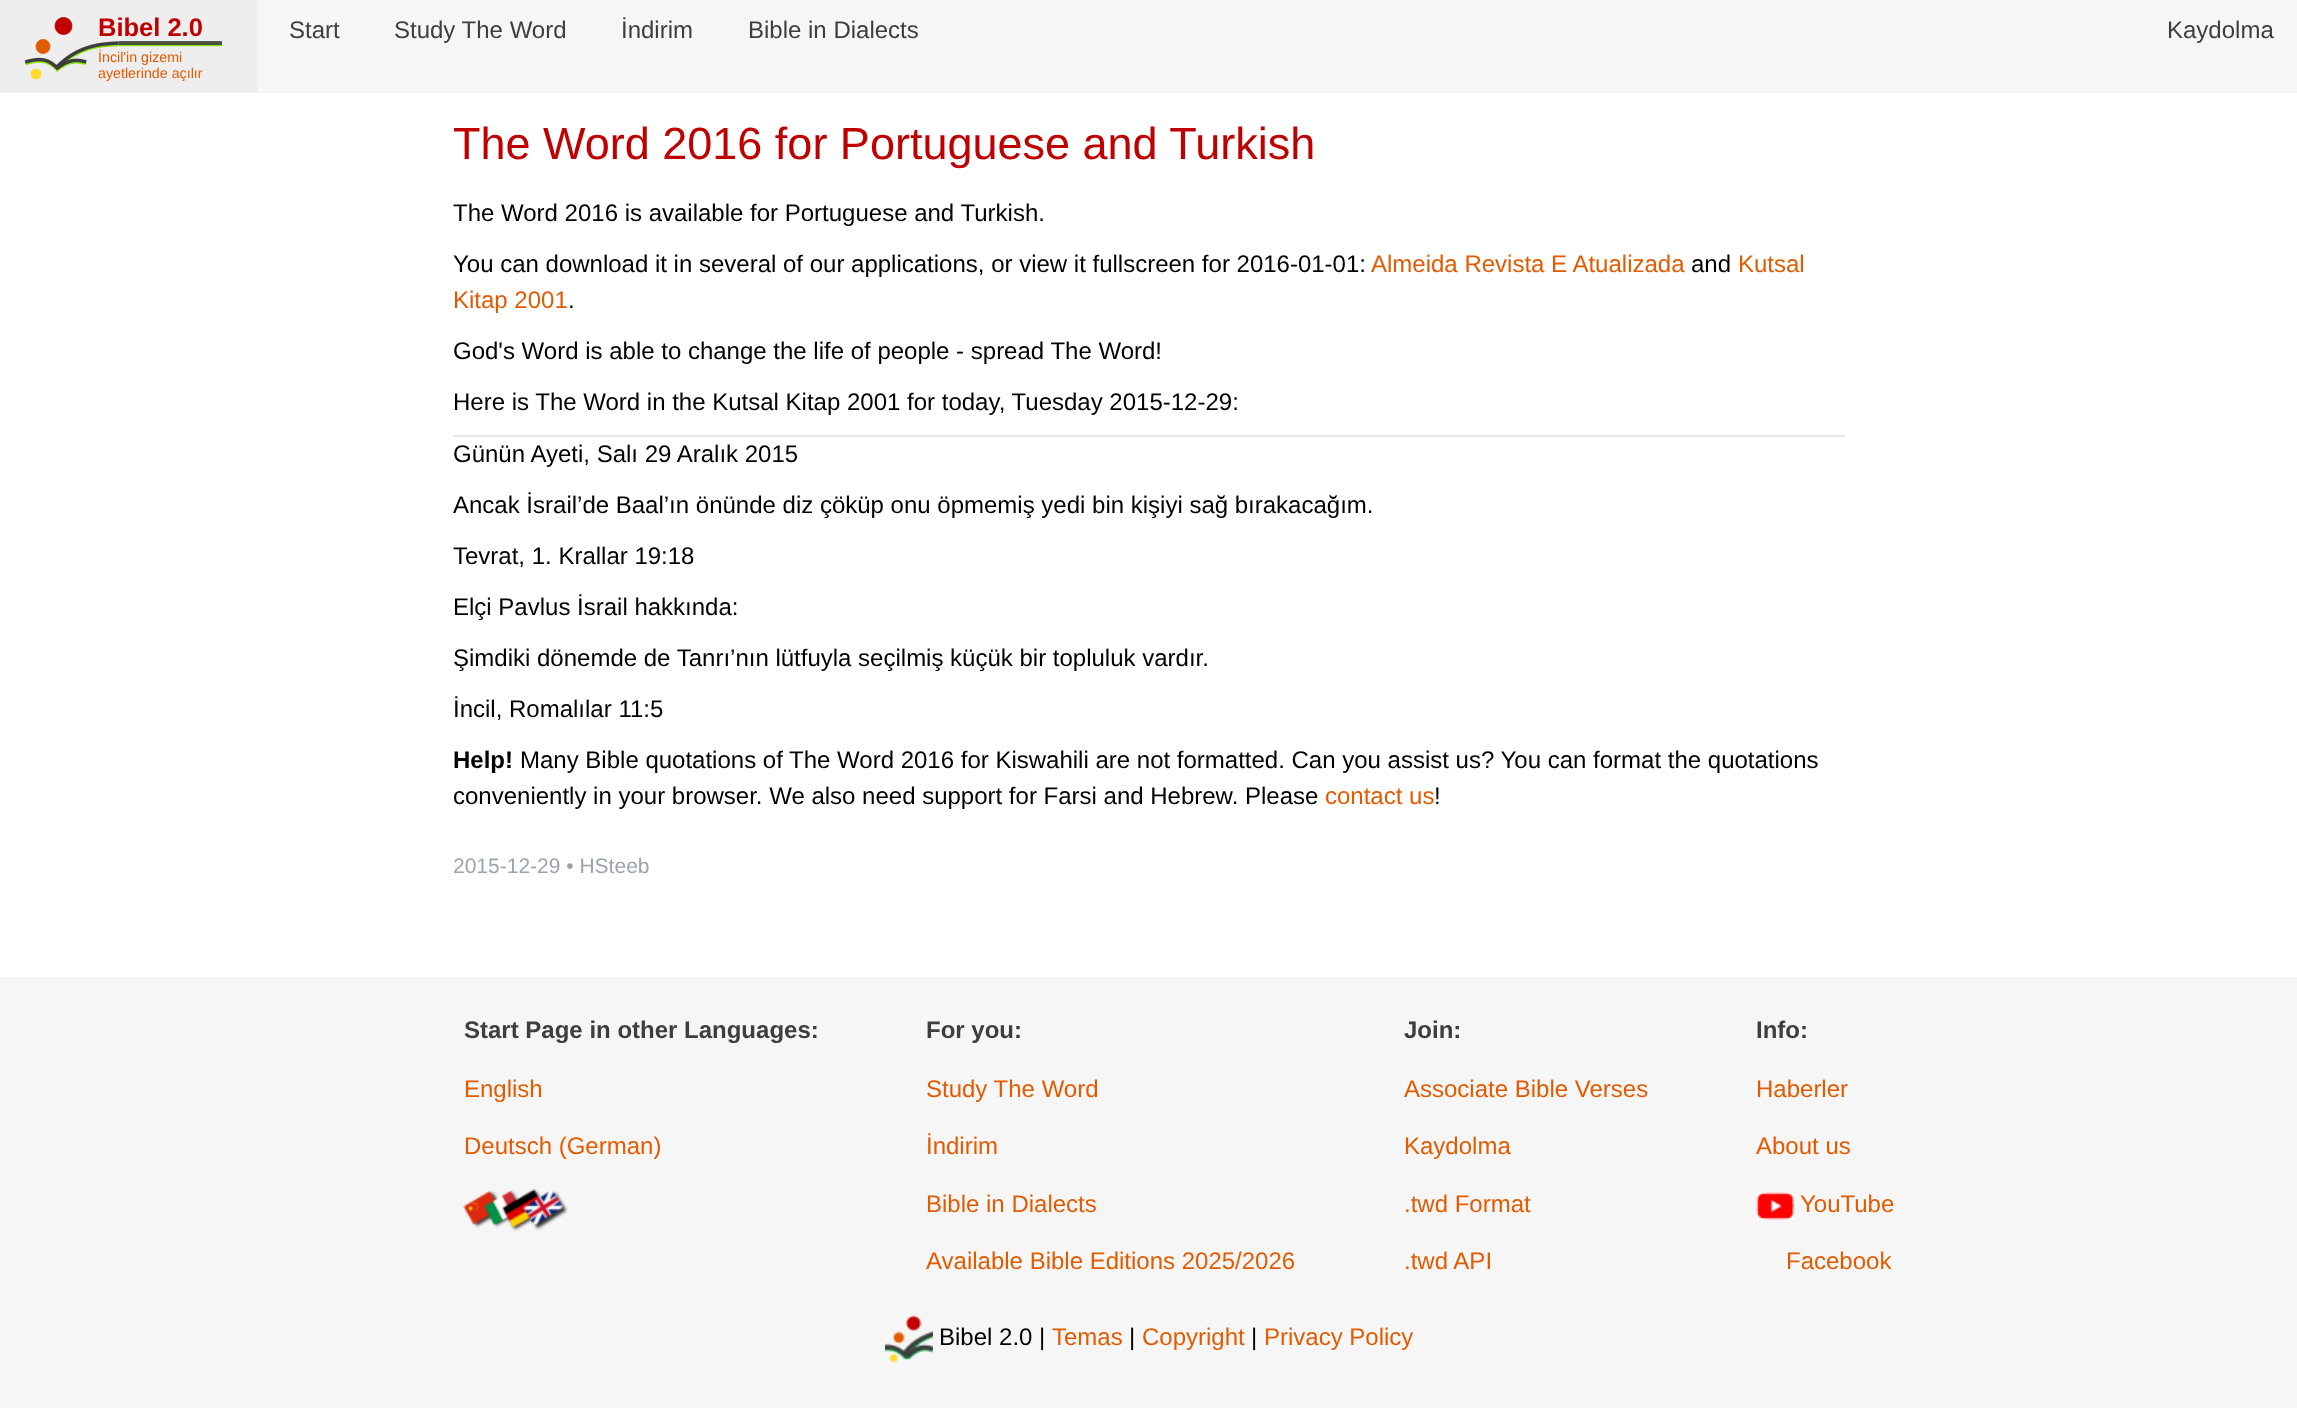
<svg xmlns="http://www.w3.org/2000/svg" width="2297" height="1408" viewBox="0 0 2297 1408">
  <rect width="100%" height="100%" fill="#f6f6f6"/>
  <path d="M0 0h258v93H0z" fill="#eee"/>
  <image x="24" y="17" width="199" height="63" href="img/1.png"/>
  <path d="M0 93h2297v884H0z" fill="#fff"/>
  <path d="M453 435h1392v2H453z" fill="#e5e7eb"/>
  <image x="463" y="1189" width="105" height="42" href="img/2.png"/>
  <image x="1756" y="1192" width="38" height="28" href="img/3.png"/>
  <image x="885" y="1315" width="48" height="48" href="img/4.png"/>
  <text x="98" y="36" font-family="Liberation Sans" font-size="25.5" font-weight="bold" fill="#c00000">Bibel 2.0</text>
  <g font-family="Liberation Sans" font-size="14.25" fill="#e35b00">
    <text x="98" y="62">İncil'in gizemi</text>
    <text x="98" y="78">ayetlerinde açılır</text>
  </g>
  <g font-family="Liberation Sans" font-size="24" fill="#3e3e3e">
    <text x="289" y="38">Start</text>
    <text x="394" y="38">Study The Word</text>
    <text x="621" y="38">İndirim</text>
    <text x="748" y="38">Bible in Dialects</text>
    <text x="2167" y="38">Kaydolma</text>
  </g>
  <text x="453" y="159" font-family="Liberation Sans" font-size="45" fill="#c00000">The Word 2016 for Portuguese and Turkish</text>
  <g font-family="Liberation Sans" font-size="24" fill="#000">
    <text x="453" y="221">The Word 2016 is available for Portuguese and Turkish.</text>
    <text x="453" y="272">You can download it in several of our applications, or view it fullscreen for 2016-01-01:</text>
  </g>
  <text x="1371" y="272" font-family="Liberation Sans" font-size="24" fill="#e35b00">Almeida Revista E Atualizada</text>
  <text x="1691" y="272" font-family="Liberation Sans" font-size="24" fill="#000">and</text>
  <g font-family="Liberation Sans" font-size="24" fill="#e35b00">
    <text x="1738" y="272">Kutsal</text>
    <text x="453" y="308">Kitap 2001</text>
  </g>
  <g font-family="Liberation Sans" font-size="24" fill="#000">
    <text x="568" y="308">.</text>
    <text x="453" y="359">God's Word is able to change the life of people - spread The Word!</text>
    <text x="453" y="410">Here is The Word in the Kutsal Kitap 2001 for today, Tuesday 2015-12-29:</text>
    <text x="453" y="462">Günün Ayeti, Salı 29 Aralık 2015</text>
    <text x="453" y="513">Ancak İsrail’de Baal’ın önünde diz çöküp onu öpmemiş yedi bin kişiyi sağ bırakacağım.</text>
    <text x="453" y="564">Tevrat, 1. Krallar 19:18</text>
    <text x="453" y="615">Elçi Pavlus İsrail hakkında:</text>
    <text x="453" y="666">Şimdiki dönemde de Tanrı’nın lütfuyla seçilmiş küçük bir topluluk vardır.</text>
    <text x="453" y="717">İncil, Romalılar 11:5</text>
  </g>
  <text x="453" y="768" font-family="Liberation Sans" font-size="24" font-weight="bold" fill="#000">Help!</text>
  <g font-family="Liberation Sans" font-size="24" fill="#000">
    <text x="520" y="768">Many Bible quotations of The Word 2016 for Kiswahili are not formatted. Can you assist us? You can format the quotations</text>
    <text x="453" y="804">conveniently in your browser. We also need support for Farsi and Hebrew. Please</text>
  </g>
  <text x="1325" y="804" font-family="Liberation Sans" font-size="24" fill="#e35b00">contact us</text>
  <text x="1434" y="804" font-family="Liberation Sans" font-size="24" fill="#000">!</text>
  <text x="453" y="873" font-family="Liberation Sans" font-size="21" fill="#9ca3af">2015-12-29 • HSteeb</text>
  <text x="464" y="1038" font-family="Liberation Sans" font-size="24" font-weight="bold" fill="#3e3e3e">Start Page in other Languages:</text>
  <g font-family="Liberation Sans" font-size="24" fill="#e35b00">
    <text x="464" y="1097">English</text>
    <text x="464" y="1154">Deutsch (German)</text>
  </g>
  <text x="926" y="1038" font-family="Liberation Sans" font-size="24" font-weight="bold" fill="#3e3e3e">For you:</text>
  <g font-family="Liberation Sans" font-size="24" fill="#e35b00">
    <text x="926" y="1097">Study The Word</text>
    <text x="926" y="1154">İndirim</text>
    <text x="926" y="1212">Bible in Dialects</text>
    <text x="926" y="1269">Available Bible Editions 2025/2026</text>
  </g>
  <text x="1404" y="1038" font-family="Liberation Sans" font-size="24" font-weight="bold" fill="#3e3e3e">Join:</text>
  <g font-family="Liberation Sans" font-size="24" fill="#e35b00">
    <text x="1404" y="1097">Associate Bible Verses</text>
    <text x="1404" y="1154">Kaydolma</text>
    <text x="1404" y="1212">.twd Format</text>
    <text x="1404" y="1269">.twd API</text>
  </g>
  <text x="1756" y="1038" font-family="Liberation Sans" font-size="24" font-weight="bold" fill="#3e3e3e">Info:</text>
  <g font-family="Liberation Sans" font-size="24" fill="#e35b00">
    <text x="1756" y="1097">Haberler</text>
    <text x="1756" y="1154">About us</text>
    <text x="1800" y="1212">YouTube</text>
    <text x="1786" y="1269">Facebook</text>
  </g>
  <text x="939" y="1345" font-family="Liberation Sans" font-size="24" fill="#000">Bibel 2.0 |</text>
  <text x="1052" y="1345" font-family="Liberation Sans" font-size="24" fill="#e35b00">Temas</text>
  <text x="1129" y="1345" font-family="Liberation Sans" font-size="24" fill="#000">|</text>
  <text x="1142" y="1345" font-family="Liberation Sans" font-size="24" fill="#e35b00">Copyright</text>
  <text x="1251" y="1345" font-family="Liberation Sans" font-size="24" fill="#000">|</text>
  <text x="1264" y="1345" font-family="Liberation Sans" font-size="24" fill="#e35b00">Privacy Policy</text>
</svg>
